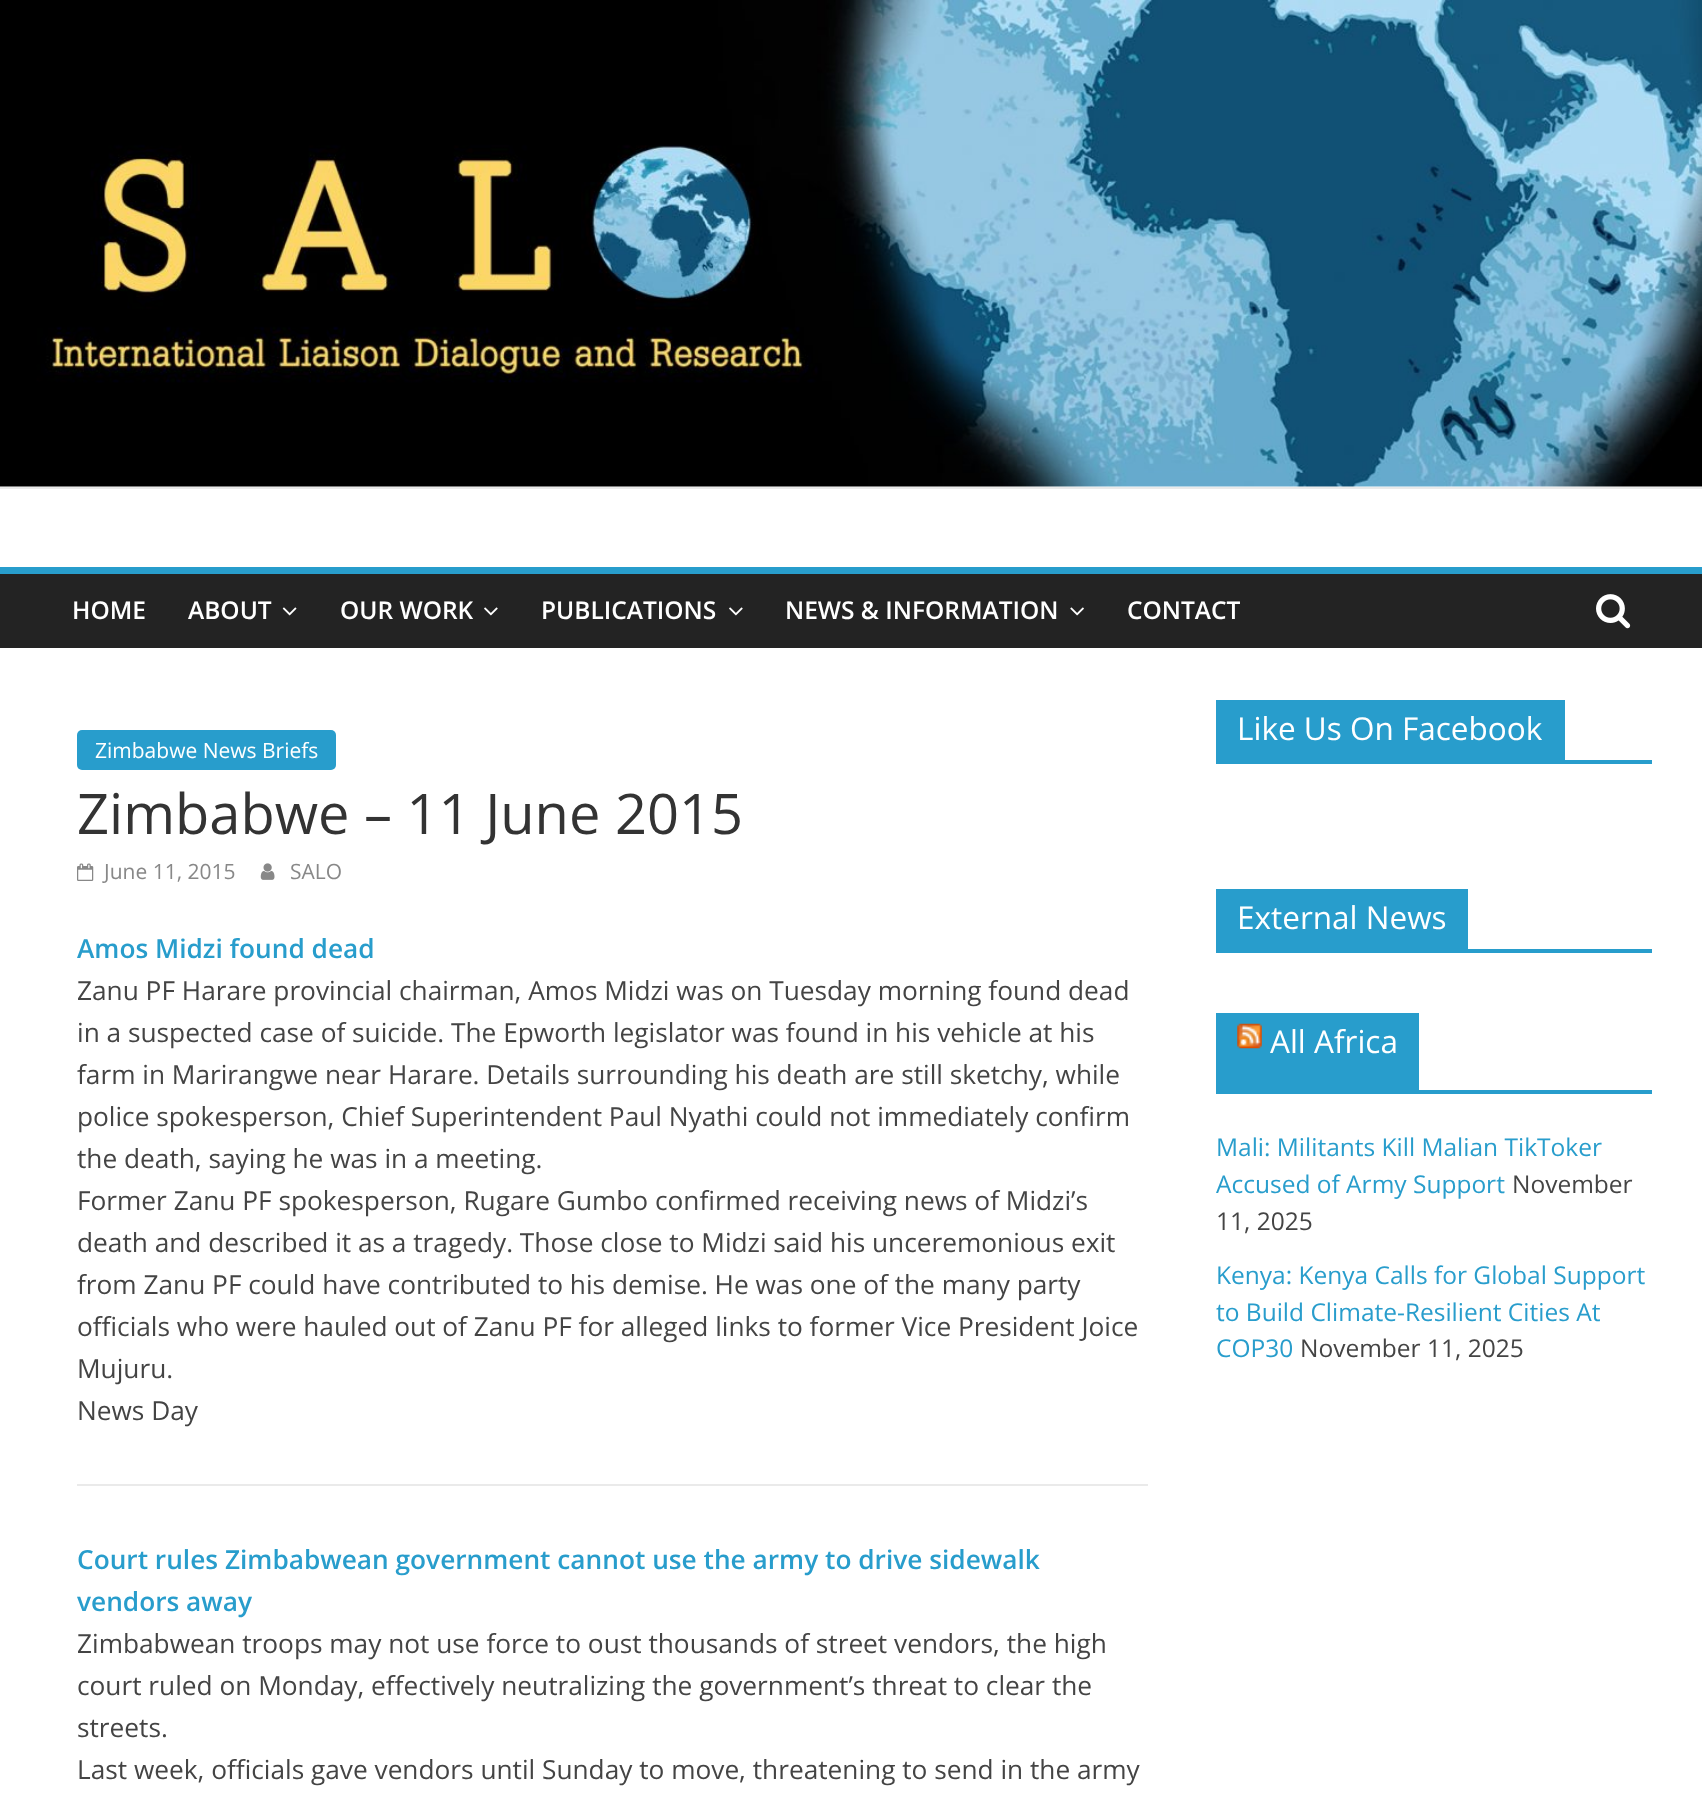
<svg xmlns="http://www.w3.org/2000/svg" width="1702" height="1800" viewBox="0 0 1702 1800">
  <rect width="100%" height="100%" fill="#fff"/>
  <image x="0" y="0" width="1702" height="487" href="img/1.png"/>
  <path d="M0 487h1702v2H0z" fill="#eaeaea"/>
  <path d="M0 574h1702v74H0z" fill="#232323"/>
  <path d="M0 567h1702v7H0z" fill="#289dcc"/>
  <image x="282" y="607" width="15" height="9" href="img/2.png"/>
  <image x="484" y="607" width="14" height="9" href="img/3.png"/>
  <image x="729" y="607" width="14" height="9" href="img/3.png"/>
  <image x="1070" y="607" width="14" height="9" href="img/4.png"/>
  <image x="1596" y="594" width="35" height="35" href="img/5.png"/>
  <rect x="77" y="730" width="259" height="40" rx="5" fill="#289dcc"/>
  <image x="77" y="863" width="17" height="18" href="img/6.png"/>
  <image x="260" y="863" width="15" height="17" href="img/7.png"/>
  <path d="M77 1484h1071v2H77z" fill="#eaeaea"/>
  <path d="M1216 760h436v4H1216z" fill="#289dcc"/>
  <path d="M1216 700h349v60H1216z" fill="#289dcc"/>
  <path d="M1216 949h436v4H1216z" fill="#289dcc"/>
  <path d="M1216 889h252v60H1216z" fill="#289dcc"/>
  <path d="M1216 1090h436v4H1216z" fill="#289dcc"/>
  <path d="M1216 1013h203v77H1216z" fill="#289dcc"/>
  <image x="1237" y="1023" width="25" height="26" href="img/8.png"/>
  <g font-family="Open Sans" font-size="24.5" font-weight="600" fill="#fff">
    <text x="72" y="619">HOME</text>
    <text x="188" y="619">ABOUT</text>
    <text x="340" y="619">OUR WORK</text>
    <text x="541" y="619">PUBLICATIONS</text>
    <text x="785" y="619">NEWS &amp; INFORMATION</text>
    <text x="1127" y="619">CONTACT</text>
  </g>
  <text x="95" y="758" font-family="Open Sans" font-size="21" fill="#fff">Zimbabwe News Briefs</text>
  <text x="77" y="834" font-family="Open Sans" font-size="56" fill="#333">Zimbabwe – 11 June 2015</text>
  <g font-family="Open Sans" font-size="21" fill="#888">
    <text x="104" y="879">June 11, 2015</text>
    <text x="290" y="879">SALO</text>
  </g>
  <text x="77" y="958" font-family="Open Sans" font-size="26.25" font-weight="600" fill="#289dcc">Amos Midzi found dead</text>
  <g font-family="Open Sans" font-size="26.25" fill="#444">
    <text x="77" y="1000">Zanu PF Harare provincial chairman, Amos Midzi was on Tuesday morning found dead</text>
    <text x="77" y="1042">in a suspected case of suicide. The Epworth legislator was found in his vehicle at his</text>
    <text x="77" y="1084">farm in Marirangwe near Harare. Details surrounding his death are still sketchy, while</text>
    <text x="77" y="1126">police spokesperson, Chief Superintendent Paul Nyathi could not immediately confirm</text>
    <text x="77" y="1168">the death, saying he was in a meeting.</text>
    <text x="77" y="1210">Former Zanu PF spokesperson, Rugare Gumbo confirmed receiving news of Midzi’s</text>
    <text x="77" y="1252">death and described it as a tragedy. Those close to Midzi said his unceremonious exit</text>
    <text x="77" y="1294">from Zanu PF could have contributed to his demise. He was one of the many party</text>
    <text x="77" y="1336">officials who were hauled out of Zanu PF for alleged links to former Vice President Joice</text>
    <text x="77" y="1378">Mujuru.</text>
    <text x="77" y="1420">News Day</text>
  </g>
  <g font-family="Open Sans" font-size="26.25" font-weight="600" fill="#289dcc">
    <text x="77" y="1569">Court rules Zimbabwean government cannot use the army to drive sidewalk</text>
    <text x="77" y="1611">vendors away</text>
  </g>
  <g font-family="Open Sans" font-size="26.25" fill="#444">
    <text x="77" y="1653">Zimbabwean troops may not use force to oust thousands of street vendors, the high</text>
    <text x="77" y="1695">court ruled on Monday, effectively neutralizing the government’s threat to clear the</text>
    <text x="77" y="1737">streets.</text>
    <text x="77" y="1779">Last week, officials gave vendors until Sunday to move, threatening to send in the army</text>
  </g>
  <g font-family="Open Sans" font-size="31.5" fill="#fff">
    <text x="1237" y="740">Like Us On Facebook</text>
    <text x="1237" y="929">External News</text>
    <text x="1270" y="1053">All Africa</text>
  </g>
  <g font-family="Open Sans" font-size="24.5" fill="#289dcc">
    <text x="1216" y="1156">Mali: Militants Kill Malian TikToker</text>
    <text x="1216" y="1193">Accused of Army Support</text>
  </g>
  <g font-family="Open Sans" font-size="24.5" fill="#444">
    <text x="1512" y="1193">November</text>
    <text x="1216" y="1230">11, 2025</text>
  </g>
  <g font-family="Open Sans" font-size="24.5" fill="#289dcc">
    <text x="1216" y="1284">Kenya: Kenya Calls for Global Support</text>
    <text x="1216" y="1321">to Build Climate-Resilient Cities At</text>
    <text x="1216" y="1357">COP30</text>
  </g>
  <text x="1300" y="1357" font-family="Open Sans" font-size="24.5" fill="#444">November 11, 2025</text>
</svg>
